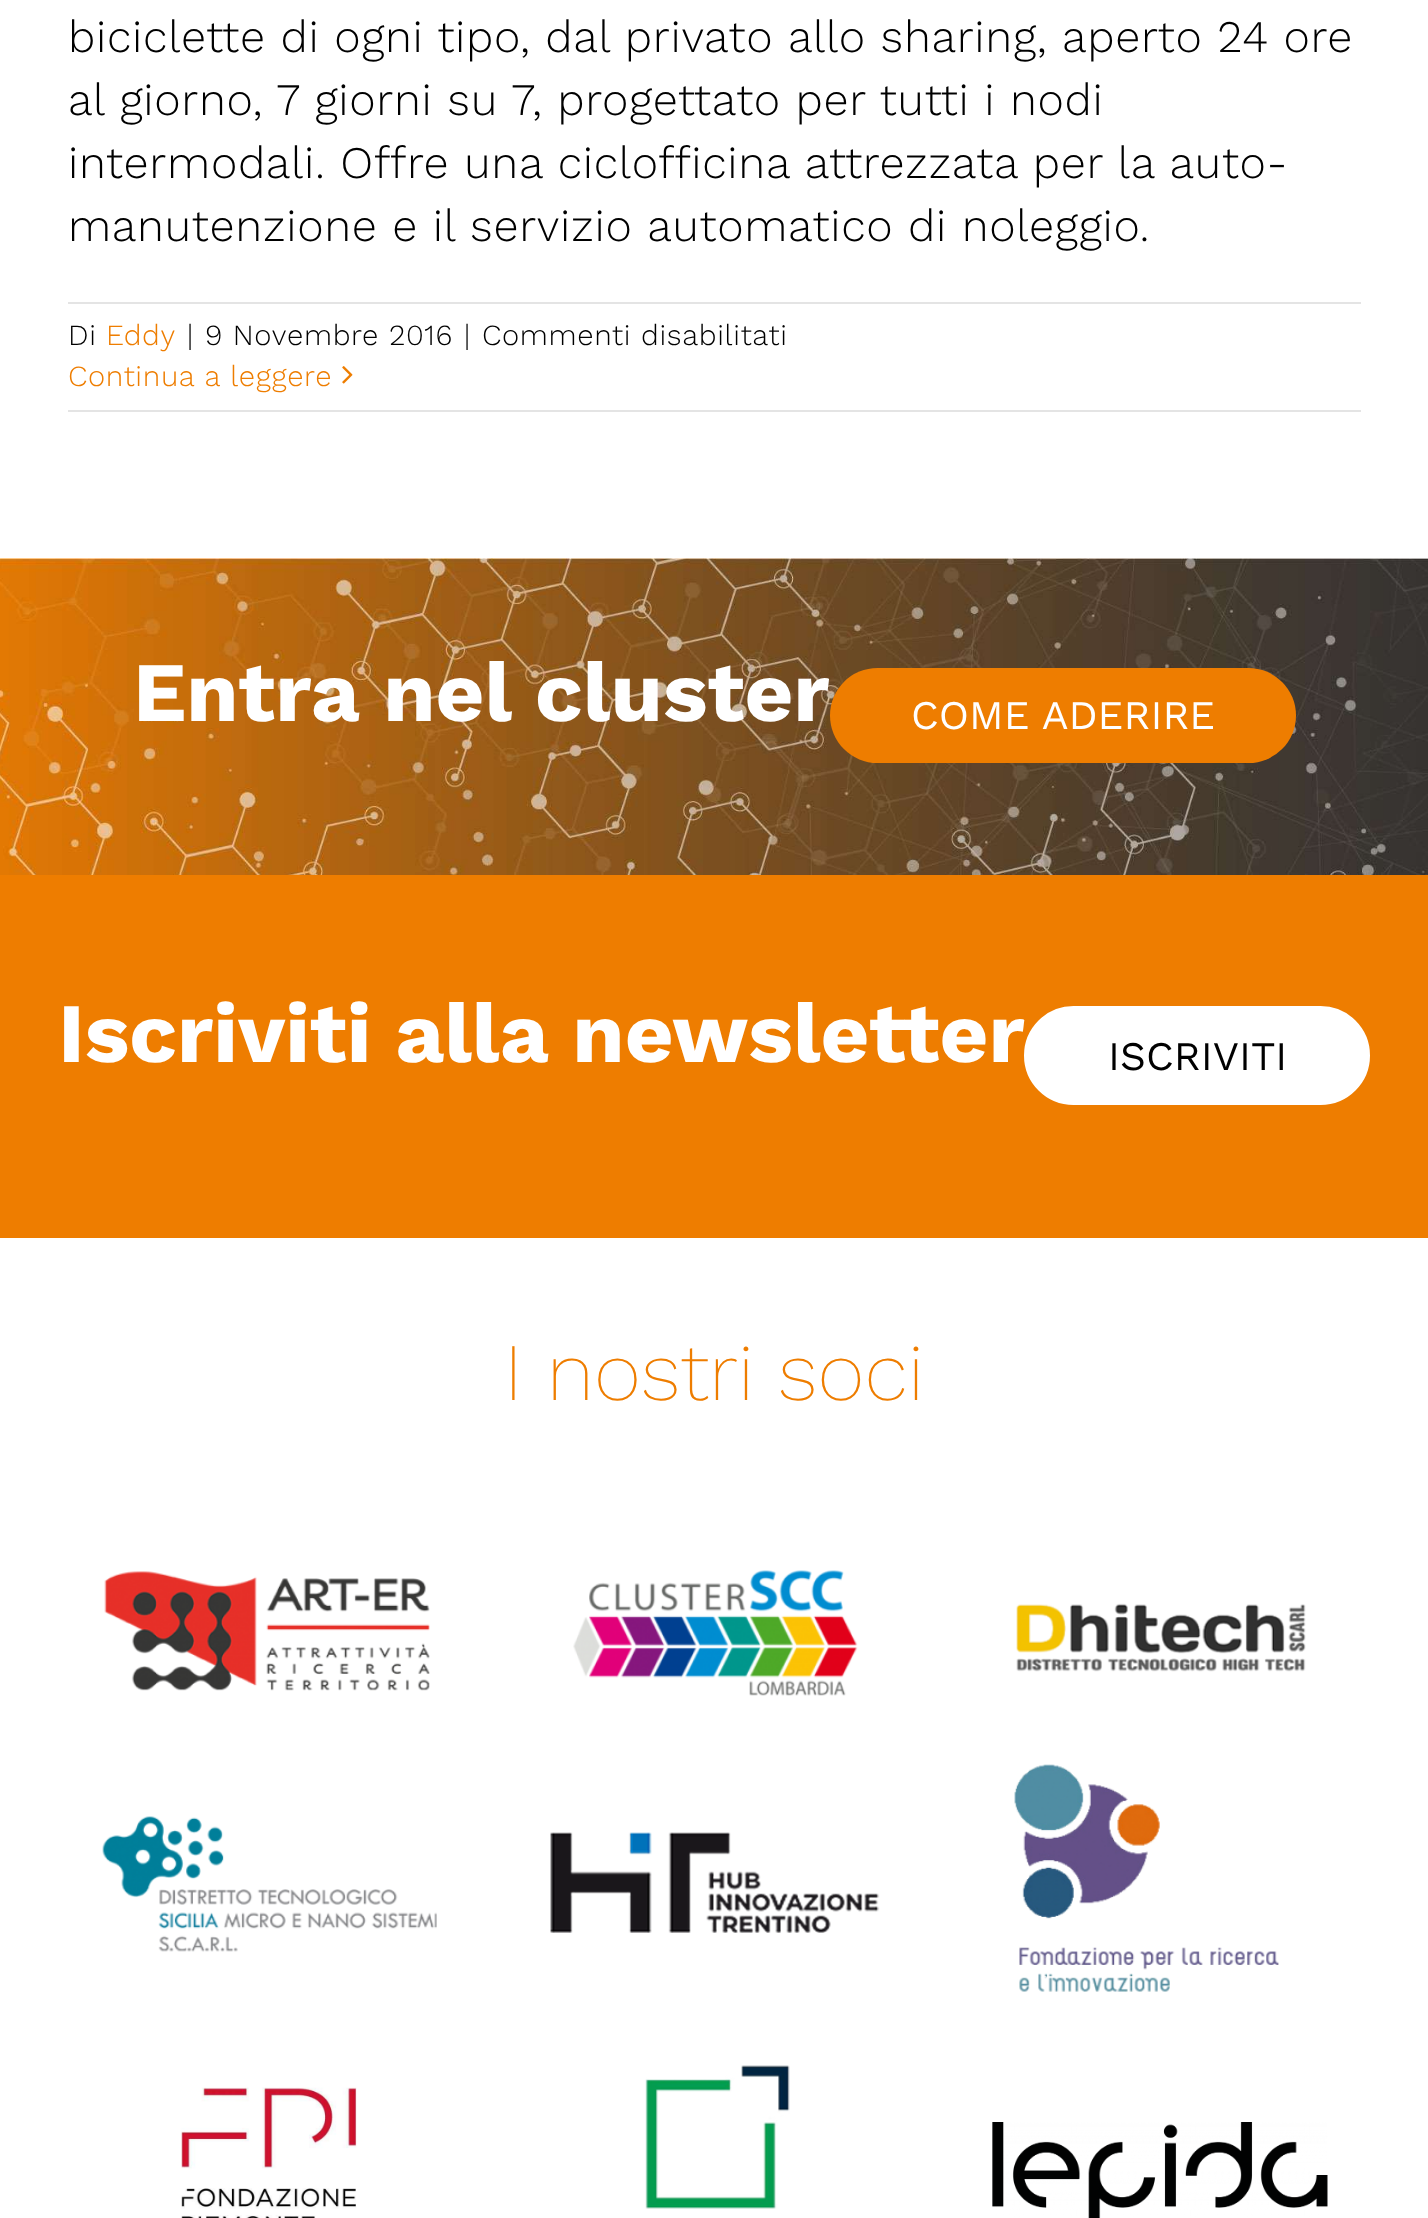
<svg xmlns="http://www.w3.org/2000/svg" width="1428" height="2218" viewBox="0 0 1428 2218">
  <rect width="100%" height="100%" fill="#fff"/>
  <path d="M68 302h1293v2H68z" fill="#e4e4e4"/>
  <path d="M68 410h1293v2H68z" fill="#e4e4e4"/>
  <image x="342" y="366" width="11" height="18" href="img/1.png"/>
  <image x="0" y="558" width="1428" height="317" href="img/2.png"/>
  <rect x="830" y="668" width="466" height="95" rx="47.5" fill="#ee7d00"/>
  <path d="M0 875h1428v363H0z" fill="#ee7d00"/>
  <rect x="1025" y="1007" width="344" height="97" rx="48.5" fill="#fff" stroke="#fff" stroke-width="2"/>
  <image x="104" y="1571" width="326" height="120" href="img/3.png"/>
  <image x="573" y="1570" width="285" height="126" href="img/4.png"/>
  <image x="1016" y="1603" width="290" height="69" href="img/5.png"/>
  <image x="102" y="1816" width="335" height="136" href="img/6.png"/>
  <image x="550" y="1832" width="330" height="101" href="img/7.png"/>
  <image x="1014" y="1764" width="265" height="228" href="img/8.png"/>
  <image x="181" y="2087" width="176" height="131" href="img/9.png"/>
  <image x="645" y="2065" width="145" height="144" href="img/10.png"/>
  <image x="992" y="2122" width="336" height="96" href="img/11.png"/>
  <g font-family="Work Sans" font-size="45" font-weight="300" letter-spacing="0.67" fill="#000">
    <text x="68" y="52">biciclette di ogni tipo, dal privato allo sharing, aperto 24 ore</text>
    <text x="68" y="115">al giorno, 7 giorni su 7, progettato per tutti i nodi</text>
    <text x="68" y="178">intermodali. Offre una ciclofficina attrezzata per la auto-</text>
    <text x="68" y="241">manutenzione e il servizio automatico di noleggio.</text>
  </g>
  <text x="68" y="345" font-family="Work Sans" font-size="29.25" font-weight="300" letter-spacing="0.67" fill="#000">Di</text>
  <text x="106" y="345" font-family="Work Sans" font-size="29.25" font-weight="300" letter-spacing="0.67" fill="#ee7d00">Eddy</text>
  <g font-family="Work Sans" font-size="29.25" font-weight="300" letter-spacing="0.67" fill="#000">
    <text x="187" y="345">|</text>
    <text x="205" y="345">9 Novembre 2016</text>
    <text x="464" y="345">|</text>
    <text x="482" y="345">Commenti disabilitati</text>
  </g>
  <text x="68" y="386" font-family="Work Sans" font-size="29.25" font-weight="300" letter-spacing="0.67" fill="#ee7d00">Continua a leggere</text>
  <text x="133" y="721" font-family="Work Sans" font-size="84.4" font-weight="bold" fill="#fff">Entra nel cluster</text>
  <text x="911" y="729" font-family="Work Sans" font-size="40.5" fill="#fff">COME ADERIRE</text>
  <text x="58" y="1062" font-family="Work Sans" font-size="84.4" font-weight="bold" fill="#fff">Iscriviti alla newsletter</text>
  <text x="1108" y="1070" font-family="Work Sans" font-size="40.5" fill="#000">ISCRIVITI</text>
  <text x="504" y="1400" font-family="Work Sans" font-size="81.5" font-weight="200" fill="#ee7d00">I nostri soci</text>
</svg>
